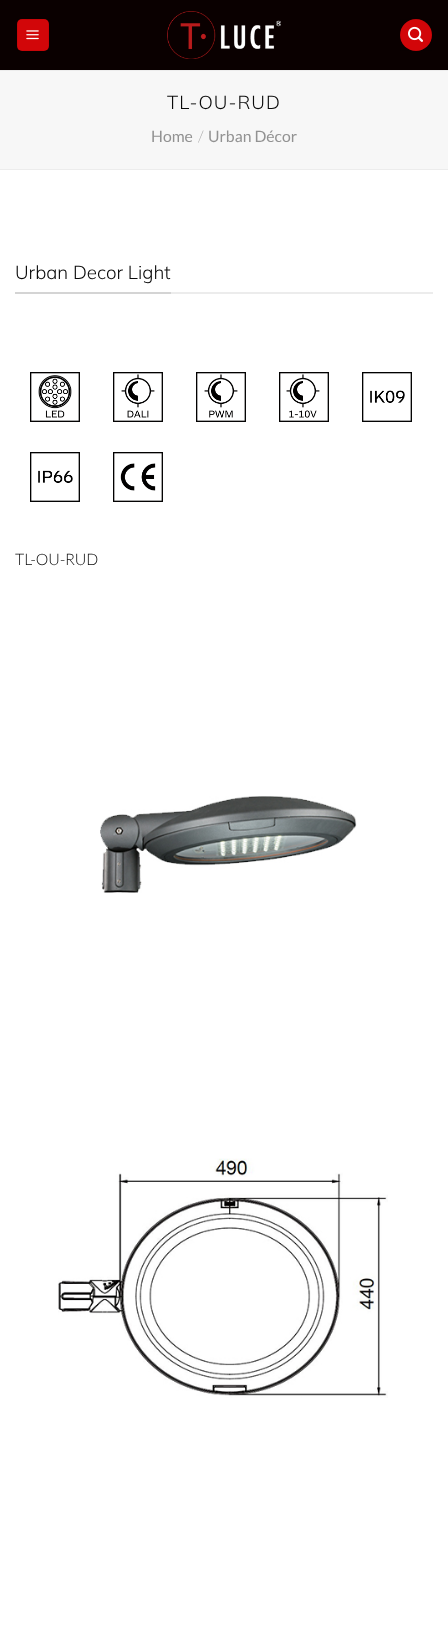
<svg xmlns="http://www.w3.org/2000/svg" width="448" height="1630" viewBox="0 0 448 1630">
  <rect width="100%" height="100%" fill="#fff"/>
  <path d="M0 0h448v70H0z" fill="#0a0000"/>
  <rect x="17" y="19" width="32" height="32" rx="5" fill="#d20609"/>
  <path d="M17.5 19.5h31v31H17.5z" fill="none" stroke="#0000000d"/>
  <image x="26" y="30" width="13" height="10" href="img/1.png"/>
  <image x="167" y="11" width="114" height="48" href="img/2.png"/>
  <circle cx="416" cy="35" r="16" fill="#d20609"/>
  <path d="M400.5 19.5h31v31H400.5z" fill="none" stroke="#0000000d"/>
  <image x="408" y="26" width="15" height="16" href="img/3.png"/>
  <path d="M0 71h448v98H0z" fill="#f7f7f7"/>
  <path d="M0 70h448v1H0z" fill="#ececec"/>
  <path d="M0 169h448v1H0z" fill="#ececec"/>
  <path d="M171 292h262v2H171z" fill="#ececec"/>
  <path d="M15 292h156v2H15z" fill="#d4d4d4"/>
  <image x="30" y="372" width="50" height="50" href="img/4.png"/>
  <image x="113" y="372" width="50" height="50" href="img/5.png"/>
  <image x="196" y="372" width="50" height="50" href="img/6.png"/>
  <image x="279" y="372" width="50" height="50" href="img/7.png"/>
  <image x="362" y="372" width="50" height="50" href="img/8.png"/>
  <image x="30" y="452" width="50" height="50" href="img/9.png"/>
  <image x="113" y="452" width="50" height="50" href="img/10.png"/>
  <image x="100" y="796" width="257" height="97" href="img/11.png"/>
  <image x="58" y="1158" width="330" height="240" href="img/12.png"/>
  <text x="167" y="109" font-family="Mulish" font-size="18.75" font-weight="300" letter-spacing="1" fill="#0a0a0a">TL-OU-RUD</text>
  <text x="151" y="142" font-family="Lato" font-size="15.75" fill="#929292">Home</text>
  <text x="198" y="142" font-family="Lato" font-size="15.75" font-weight="300" fill="#acacac">/</text>
  <text x="208" y="142" font-family="Lato" font-size="15.75" fill="#929292">Urban Décor</text>
  <text x="15" y="279" font-family="Mulish" font-size="18.75" font-weight="300" fill="#0a0a0a">Urban Decor Light</text>
  <text x="15" y="565" font-family="Lato" font-size="15.75" font-weight="300" fill="#0a0a0a">TL-OU-RUD</text>
</svg>
